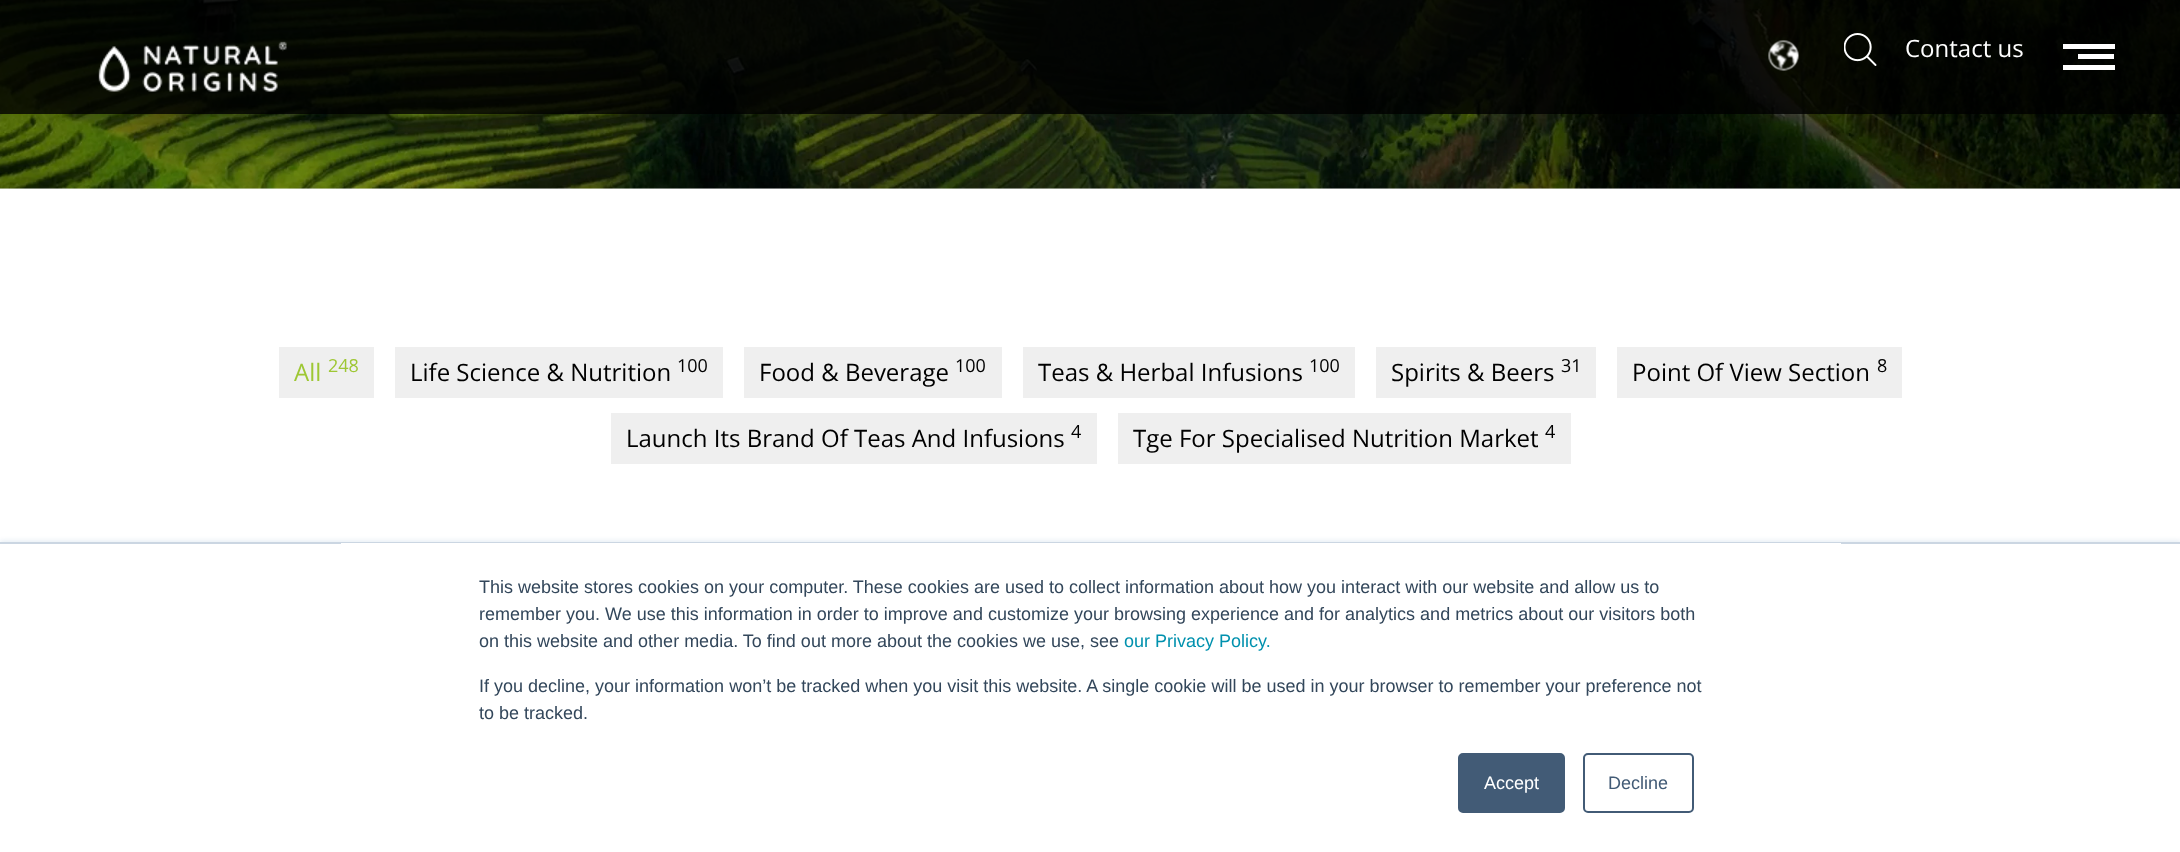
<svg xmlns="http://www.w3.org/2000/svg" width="2180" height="852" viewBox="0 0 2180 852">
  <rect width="100%" height="100%" fill="#fff"/>
  <path d="M0 188h2180v1H0z" fill="#ebebeb"/>
  <image x="0" y="0" width="2180" height="189" href="img/1.png"/>
  <path d="M0 0h2180v114H0z" fill="#000000cc"/>
  <image x="98" y="41" width="189" height="51" href="img/2.png"/>
  <image x="1768" y="40" width="31" height="31" href="img/3.png"/>
  <image x="1844" y="33" width="33" height="33" href="img/4.png"/>
  <path d="M2063 44h52v5H2063z" fill="#fff"/>
  <path d="M2078 54h36v5H2078z" fill="#fff"/>
  <path d="M2063 65h52v5H2063z" fill="#fff"/>
  <path d="M279 347h95v51H279z" fill="#efefef"/>
  <path d="M395 347h328v51H395z" fill="#efefef"/>
  <path d="M744 347h258v51H744z" fill="#efefef"/>
  <path d="M1023 347h332v51H1023z" fill="#efefef"/>
  <path d="M1376 347h220v51H1376z" fill="#efefef"/>
  <path d="M1617 347h285v51H1617z" fill="#efefef"/>
  <path d="M611 413h486v51H611z" fill="#efefef"/>
  <path d="M1118 413h453v51H1118z" fill="#efefef"/>
  <path d="M0 540h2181v311H0z" fill="#eaf0f6" filter="blur(2px)"/>
  <path d="M0 544h2180v308H0z" fill="#fff"/>
  <path d="M0 542h2180v2H0z" fill="#cbd6e2"/>
  <path d="M341 543h1500v1H341z" fill="#fff"/>
  <rect x="1459" y="754" width="105" height="58" rx="4" fill="#425b76" stroke="#425b76" stroke-width="2"/>
  <rect x="1584" y="754" width="109" height="58" rx="4" fill="none" stroke="#425b76" stroke-width="2"/>
  <text x="1905" y="57" font-family="Open Sans" font-size="24" fill="#fff">Contact us</text>
  <text x="294" y="381" font-family="Open Sans" font-size="24" fill="#9ec734">All</text>
  <text x="328" y="372" font-family="Open Sans" font-size="18" fill="#9ec734">248</text>
  <text x="410" y="381" font-family="Open Sans" font-size="24" fill="#000">Life Science &amp; Nutrition</text>
  <text x="677" y="372" font-family="Open Sans" font-size="18" fill="#000">100</text>
  <text x="759" y="381" font-family="Open Sans" font-size="24" fill="#000">Food &amp; Beverage</text>
  <text x="955" y="372" font-family="Open Sans" font-size="18" fill="#000">100</text>
  <text x="1038" y="381" font-family="Open Sans" font-size="24" fill="#000">Teas &amp; Herbal Infusions</text>
  <text x="1309" y="372" font-family="Open Sans" font-size="18" fill="#000">100</text>
  <text x="1391" y="381" font-family="Open Sans" font-size="24" fill="#000">Spirits &amp; Beers</text>
  <text x="1561" y="372" font-family="Open Sans" font-size="18" fill="#000">31</text>
  <text x="1632" y="381" font-family="Open Sans" font-size="24" fill="#000">Point Of View Section</text>
  <text x="1877" y="372" font-family="Open Sans" font-size="18" fill="#000">8</text>
  <text x="626" y="447" font-family="Open Sans" font-size="24" fill="#000">Launch Its Brand Of Teas And Infusions</text>
  <text x="1071" y="438" font-family="Open Sans" font-size="18" fill="#000">4</text>
  <text x="1133" y="447" font-family="Open Sans" font-size="24" fill="#000">Tge For Specialised Nutrition Market</text>
  <text x="1545" y="438" font-family="Open Sans" font-size="18" fill="#000">4</text>
  <g font-family="Liberation Sans" font-size="18" fill="#33475b">
    <text x="479" y="593">This website stores cookies on your computer. These cookies are used to collect information about how you interact with our website and allow us to</text>
    <text x="479" y="620">remember you. We use this information in order to improve and customize your browsing experience and for analytics and metrics about our visitors both</text>
    <text x="479" y="647">on this website and other media. To find out more about the cookies we use, see</text>
  </g>
  <text x="1124" y="647" font-family="Liberation Sans" font-size="18" fill="#0091ae">our Privacy Policy.</text>
  <g font-family="Liberation Sans" font-size="18" fill="#33475b">
    <text x="479" y="692">If you decline, your information won’t be tracked when you visit this website. A single cookie will be used in your browser to remember your preference not</text>
    <text x="479" y="719">to be tracked.</text>
  </g>
  <text x="1484" y="789" font-family="Liberation Sans" font-size="18" fill="#fff">Accept</text>
  <text x="1608" y="789" font-family="Liberation Sans" font-size="18" fill="#425b76">Decline</text>
</svg>
